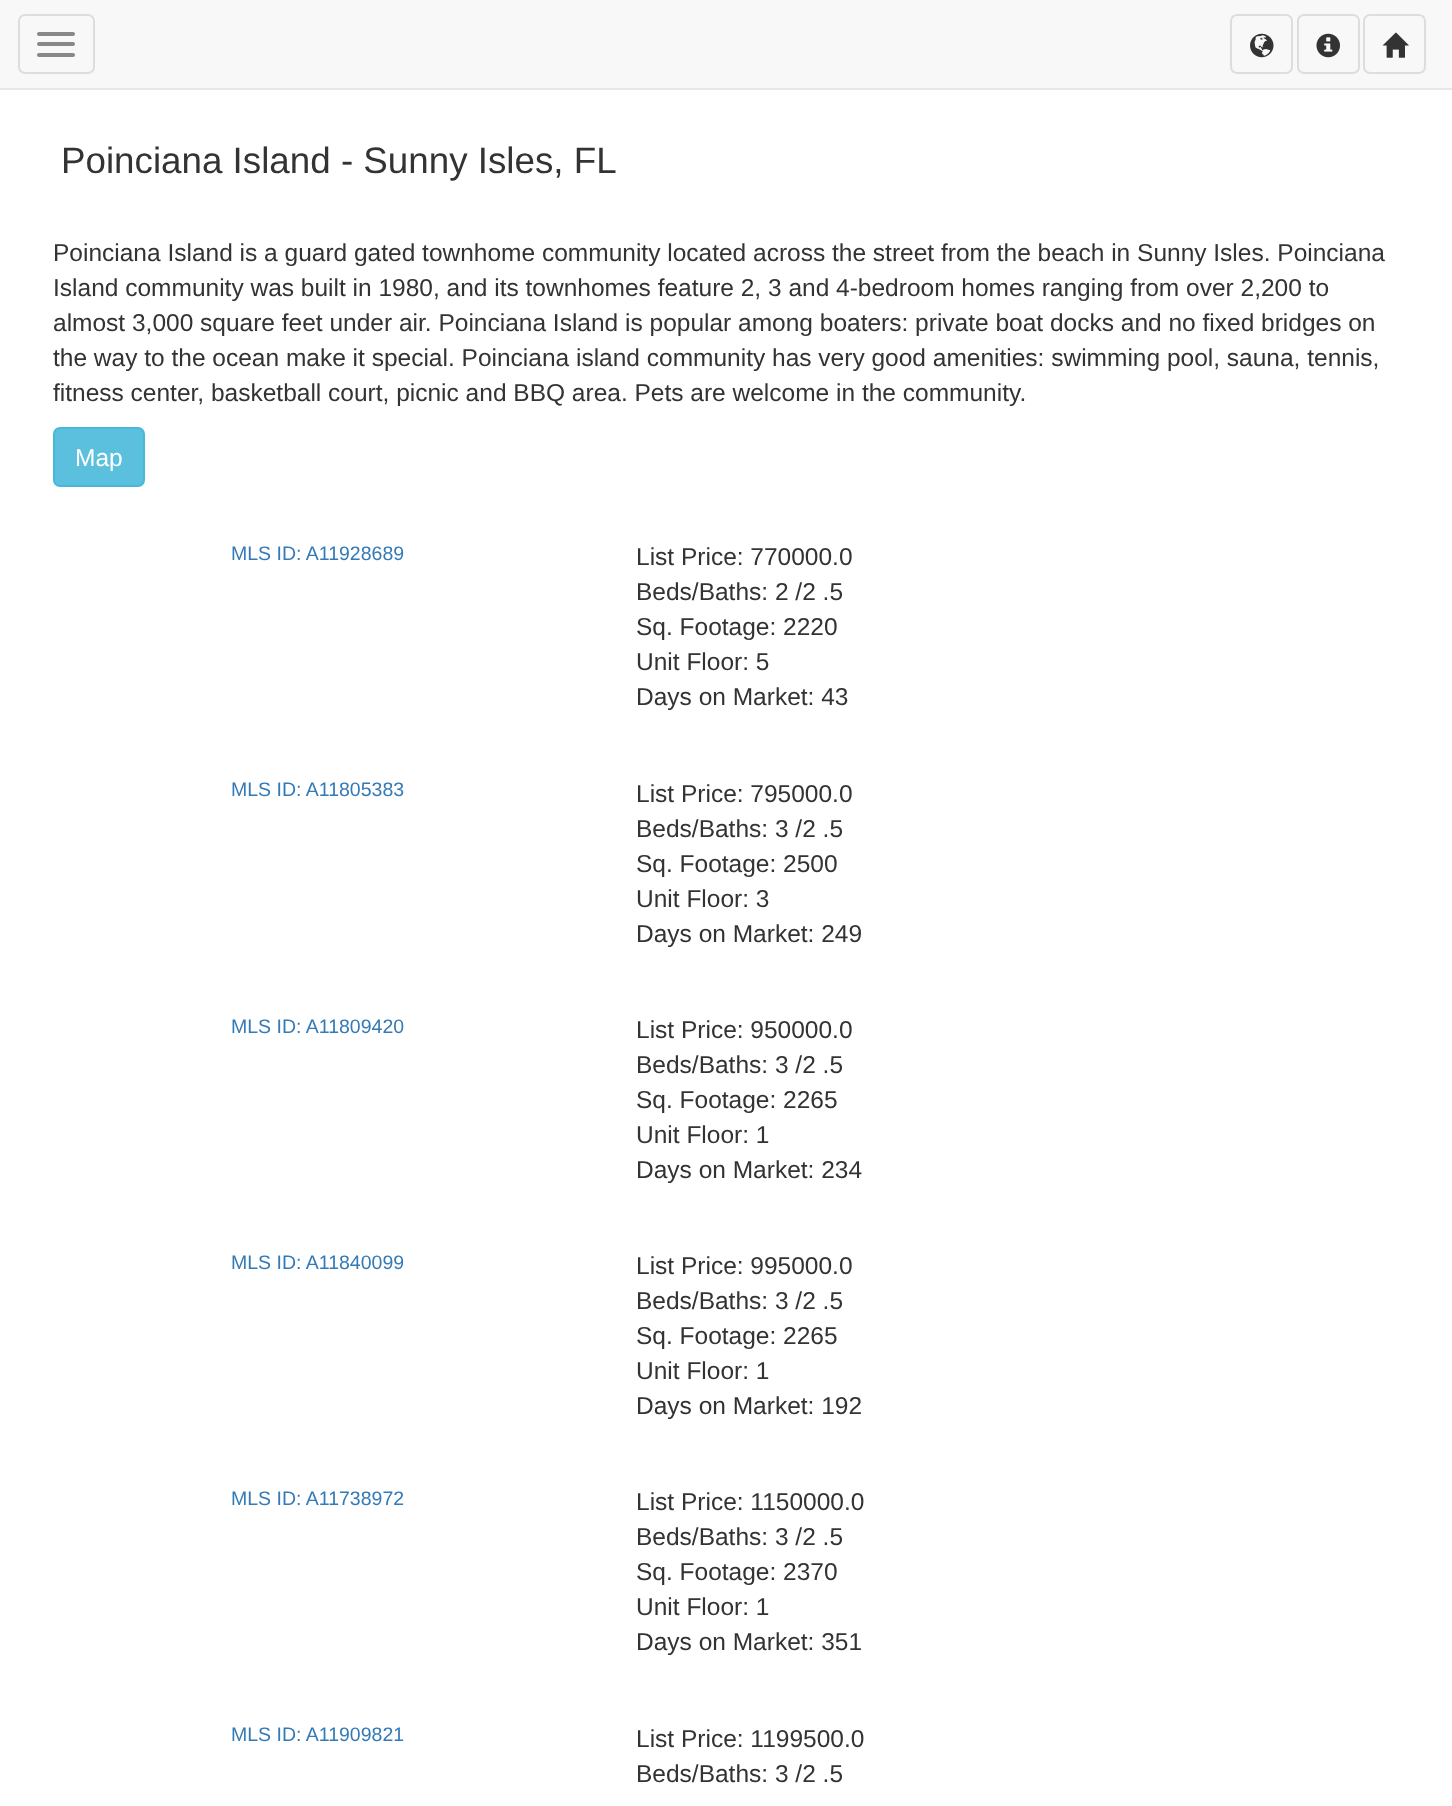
<svg xmlns="http://www.w3.org/2000/svg" width="1452" height="1806" viewBox="0 0 1452 1806">
  <rect width="100%" height="100%" fill="#fff"/>
  <path d="M0 0h1452v88H0z" fill="#f8f8f8"/>
  <path d="M0 88h1452v2H0z" fill="#e7e7e7"/>
  <rect x="19" y="15" width="75" height="58" rx="6" fill="none" stroke="#ddd" stroke-width="2"/>
  <rect x="37" y="32" width="38" height="4" rx="2" fill="#888"/>
  <rect x="37" y="42" width="38" height="4" rx="2" fill="#888"/>
  <rect x="37" y="53" width="38" height="4" rx="2" fill="#888"/>
  <rect x="1231" y="15" width="61" height="58" rx="6" fill="none" stroke="#ddd" stroke-width="2"/>
  <image x="1250" y="33" width="24" height="25" href="img/1.png"/>
  <rect x="1298" y="15" width="61" height="58" rx="6" fill="none" stroke="#ddd" stroke-width="2"/>
  <image x="1316" y="33" width="24" height="25" href="img/2.png"/>
  <rect x="1364" y="15" width="61" height="58" rx="6" fill="none" stroke="#ddd" stroke-width="2"/>
  <image x="1382" y="32" width="27" height="26" href="img/3.png"/>
  <rect x="54" y="428" width="90" height="58" rx="6" fill="#5bc0de" stroke="#46b8da" stroke-width="2"/>
  <text x="61" y="173" font-family="Liberation Sans" font-size="36.75" fill="#333">Poinciana Island - Sunny Isles, FL</text>
  <g font-family="Liberation Sans" font-size="24.5" fill="#333">
    <text x="53" y="261">Poinciana Island is a guard gated townhome community located across the street from the beach in Sunny Isles. Poinciana</text>
    <text x="53" y="296">Island community was built in 1980, and its townhomes feature 2, 3 and 4-bedroom homes ranging from over 2,200 to</text>
    <text x="53" y="331">almost 3,000 square feet under air. Poinciana Island is popular among boaters: private boat docks and no fixed bridges on</text>
    <text x="53" y="366">the way to the ocean make it special. Poinciana island community has very good amenities: swimming pool, sauna, tennis,</text>
    <text x="53" y="401">fitness center, basketball court, picnic and BBQ area. Pets are welcome in the community.</text>
  </g>
  <text x="75" y="466" font-family="Liberation Sans" font-size="24.5" fill="#fff">Map</text>
  <text x="231" y="560" font-family="Liberation Sans" font-size="19.5" fill="#337ab7">MLS ID: A11928689</text>
  <g font-family="Liberation Sans" font-size="24.5" fill="#333">
    <text x="636" y="565">List Price: 770000.0</text>
    <text x="636" y="600">Beds/Baths: 2 /2 .5</text>
    <text x="636" y="635">Sq. Footage: 2220</text>
    <text x="636" y="670">Unit Floor: 5</text>
    <text x="636" y="705">Days on Market: 43</text>
  </g>
  <text x="231" y="796" font-family="Liberation Sans" font-size="19.5" fill="#337ab7">MLS ID: A11805383</text>
  <g font-family="Liberation Sans" font-size="24.5" fill="#333">
    <text x="636" y="802">List Price: 795000.0</text>
    <text x="636" y="837">Beds/Baths: 3 /2 .5</text>
    <text x="636" y="872">Sq. Footage: 2500</text>
    <text x="636" y="907">Unit Floor: 3</text>
    <text x="636" y="942">Days on Market: 249</text>
  </g>
  <text x="231" y="1033" font-family="Liberation Sans" font-size="19.5" fill="#337ab7">MLS ID: A11809420</text>
  <g font-family="Liberation Sans" font-size="24.5" fill="#333">
    <text x="636" y="1038">List Price: 950000.0</text>
    <text x="636" y="1073">Beds/Baths: 3 /2 .5</text>
    <text x="636" y="1108">Sq. Footage: 2265</text>
    <text x="636" y="1143">Unit Floor: 1</text>
    <text x="636" y="1178">Days on Market: 234</text>
  </g>
  <text x="231" y="1269" font-family="Liberation Sans" font-size="19.5" fill="#337ab7">MLS ID: A11840099</text>
  <g font-family="Liberation Sans" font-size="24.5" fill="#333">
    <text x="636" y="1274">List Price: 995000.0</text>
    <text x="636" y="1309">Beds/Baths: 3 /2 .5</text>
    <text x="636" y="1344">Sq. Footage: 2265</text>
    <text x="636" y="1379">Unit Floor: 1</text>
    <text x="636" y="1414">Days on Market: 192</text>
  </g>
  <text x="231" y="1505" font-family="Liberation Sans" font-size="19.5" fill="#337ab7">MLS ID: A11738972</text>
  <g font-family="Liberation Sans" font-size="24.5" fill="#333">
    <text x="636" y="1510">List Price: 1150000.0</text>
    <text x="636" y="1545">Beds/Baths: 3 /2 .5</text>
    <text x="636" y="1580">Sq. Footage: 2370</text>
    <text x="636" y="1615">Unit Floor: 1</text>
    <text x="636" y="1650">Days on Market: 351</text>
  </g>
  <text x="231" y="1741" font-family="Liberation Sans" font-size="19.5" fill="#337ab7">MLS ID: A11909821</text>
  <g font-family="Liberation Sans" font-size="24.5" fill="#333">
    <text x="636" y="1747">List Price: 1199500.0</text>
    <text x="636" y="1782">Beds/Baths: 3 /2 .5</text>
  </g>
</svg>
